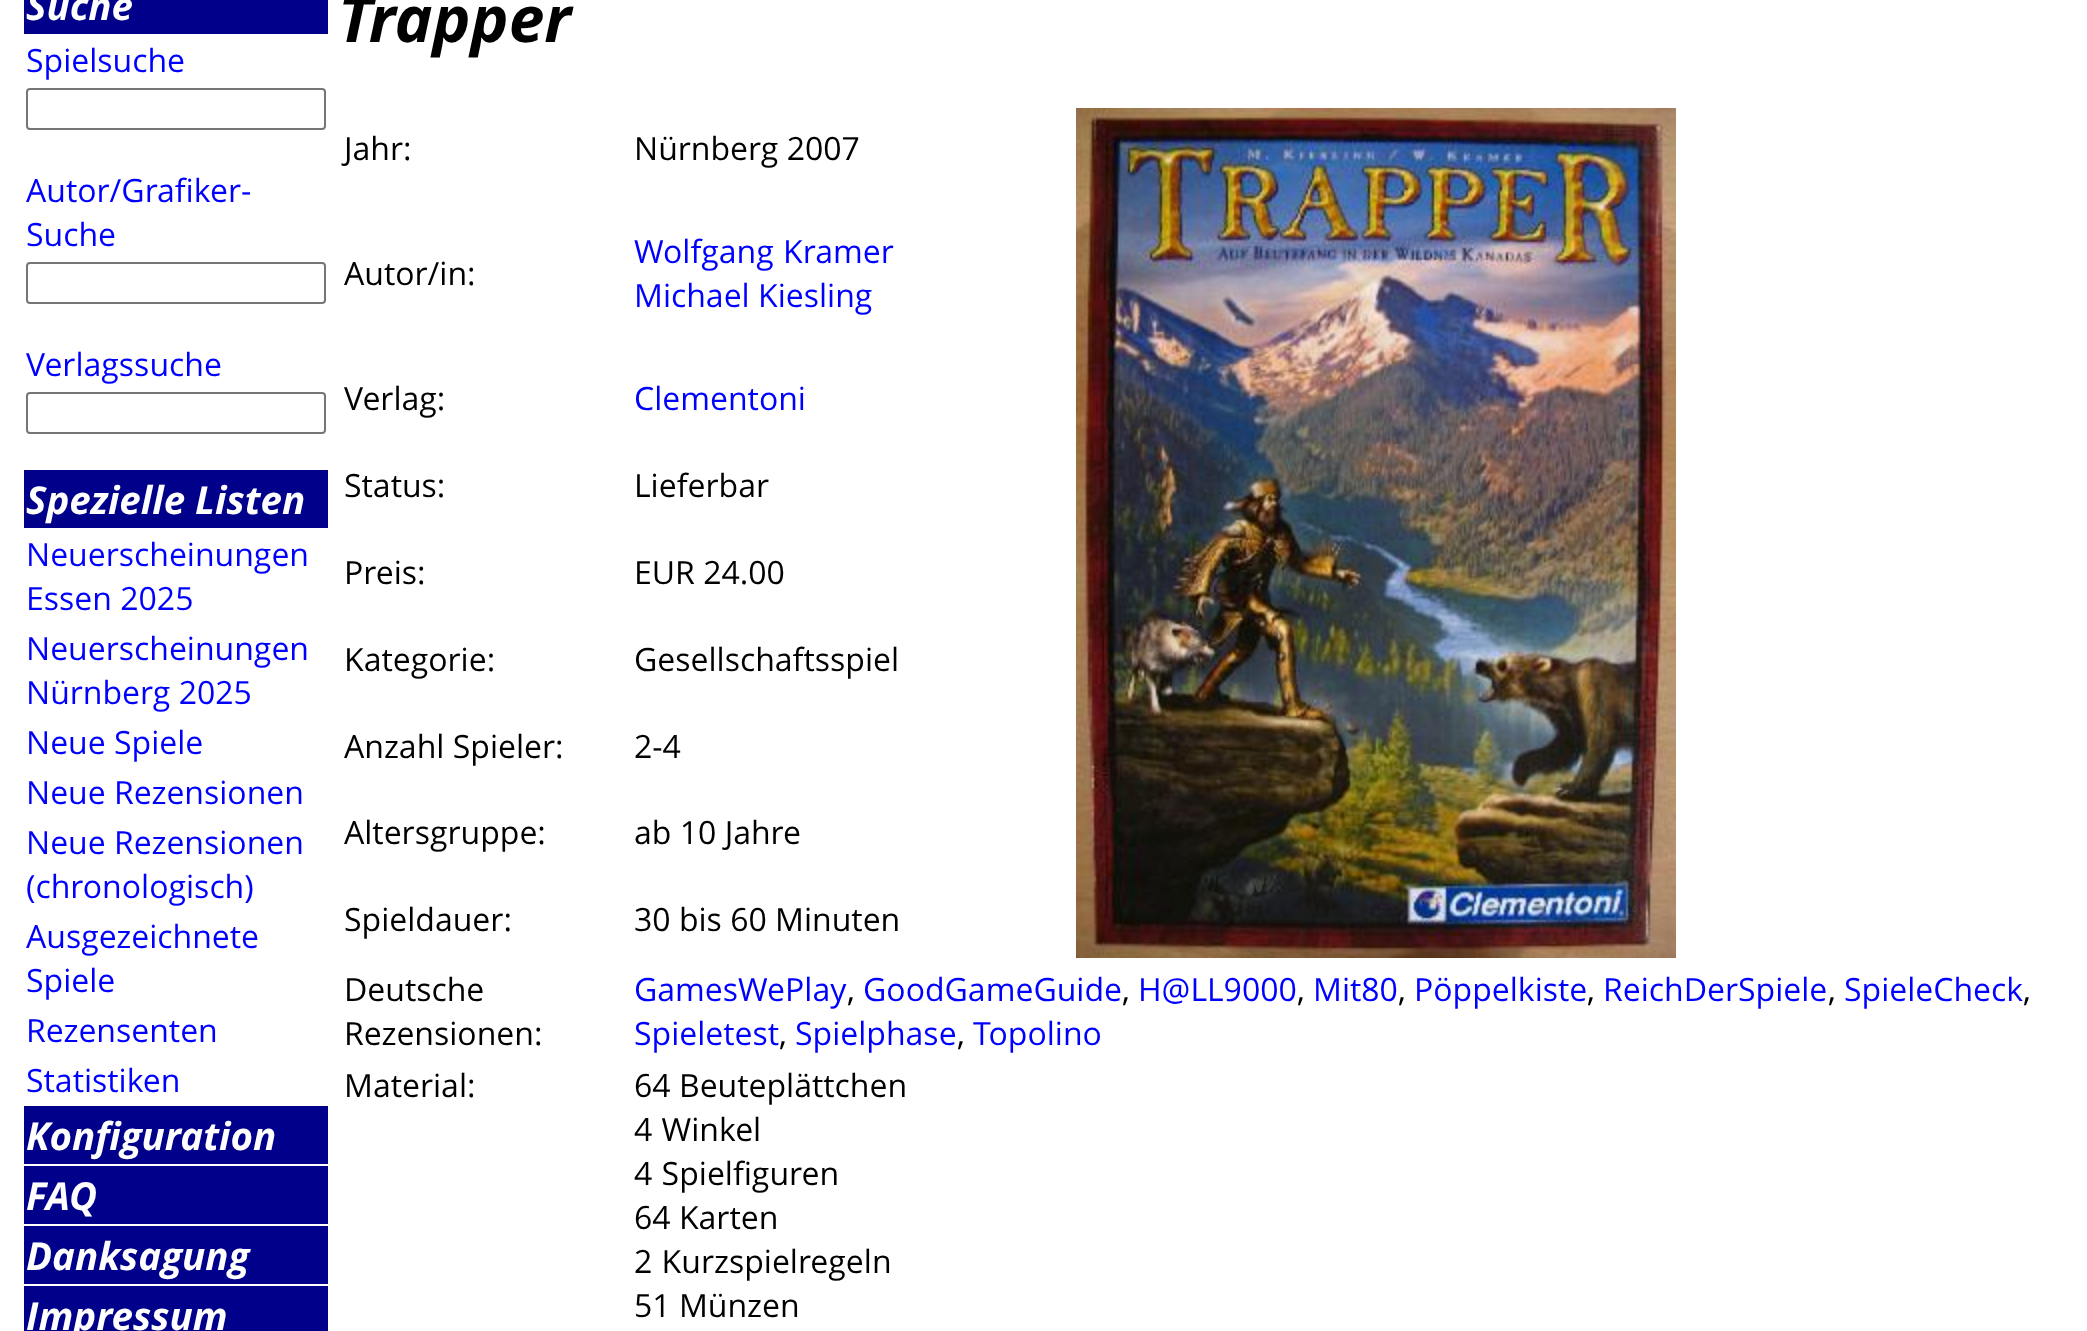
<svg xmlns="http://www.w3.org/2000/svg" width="2087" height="1331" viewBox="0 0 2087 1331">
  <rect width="100%" height="100%" fill="#fff"/>
  <path d="M24 0h304v34H24z" fill="#00008b"/>
  <rect x="27" y="89" width="298" height="40" rx="3" fill="none" stroke="#767676" stroke-width="2"/>
  <rect x="27" y="263" width="298" height="40" rx="3" fill="none" stroke="#767676" stroke-width="2"/>
  <rect x="27" y="393" width="298" height="40" rx="3" fill="none" stroke="#767676" stroke-width="2"/>
  <path d="M24 470h304v58H24z" fill="#00008b"/>
  <path d="M24 1106h304v58H24z" fill="#00008b"/>
  <path d="M24 1166h304v58H24z" fill="#00008b"/>
  <path d="M24 1226h304v58H24z" fill="#00008b"/>
  <path d="M24 1286h304v45H24z" fill="#00008b"/>
  <image x="1076" y="108" width="600" height="850" href="img/1.png"/>
  <text x="26" y="20" font-family="Open Sans" font-size="38.5" font-weight="bold" font-style="italic" fill="#fff">Suche</text>
  <g font-family="Open Sans" font-size="32" fill="#00f">
    <text x="26" y="72">Spielsuche</text>
    <text x="26" y="202">Autor/Grafiker-</text>
    <text x="26" y="246">Suche</text>
    <text x="26" y="376">Verlagssuche</text>
  </g>
  <text x="26" y="514" font-family="Open Sans" font-size="38.5" font-weight="bold" font-style="italic" fill="#fff">Spezielle Listen</text>
  <g font-family="Open Sans" font-size="32" fill="#00f">
    <text x="26" y="566">Neuerscheinungen</text>
    <text x="26" y="610">Essen 2025</text>
    <text x="26" y="660">Neuerscheinungen</text>
    <text x="26" y="704">Nürnberg 2025</text>
    <text x="26" y="754">Neue Spiele</text>
    <text x="26" y="804">Neue Rezensionen</text>
    <text x="26" y="854">Neue Rezensionen</text>
    <text x="26" y="898">(chronologisch)</text>
    <text x="26" y="948">Ausgezeichnete</text>
    <text x="26" y="992">Spiele</text>
    <text x="26" y="1042">Rezensenten</text>
    <text x="26" y="1092">Statistiken</text>
  </g>
  <g font-family="Open Sans" font-size="38.5" font-weight="bold" font-style="italic" fill="#fff">
    <text x="26" y="1150">Konfiguration</text>
    <text x="26" y="1210">FAQ</text>
    <text x="26" y="1270">Danksagung</text>
    <text x="26" y="1330">Impressum</text>
  </g>
  <text x="338" y="42" font-family="Open Sans" font-size="64" font-weight="bold" font-style="italic" fill="#000">Trapper</text>
  <g font-family="Open Sans" font-size="32" fill="#000">
    <text x="344" y="160">Jahr:</text>
    <text x="634" y="160">Nürnberg 2007</text>
    <text x="344" y="285">Autor/in:</text>
  </g>
  <g font-family="Open Sans" font-size="32" fill="#00f">
    <text x="634" y="263" word-spacing="1">Wolfgang Kramer</text>
    <text x="634" y="307">Michael Kiesling</text>
  </g>
  <text x="344" y="410" font-family="Open Sans" font-size="32" fill="#000">Verlag:</text>
  <text x="634" y="410" font-family="Open Sans" font-size="32" fill="#00f">Clementoni</text>
  <g font-family="Open Sans" font-size="32" fill="#000">
    <text x="344" y="497">Status:</text>
    <text x="634" y="497">Lieferbar</text>
    <text x="344" y="584">Preis:</text>
    <text x="634" y="584">EUR 24.00</text>
    <text x="344" y="671">Kategorie:</text>
    <text x="634" y="671">Gesellschaftsspiel</text>
    <text x="344" y="758">Anzahl Spieler:</text>
    <text x="634" y="758">2-4</text>
    <text x="344" y="844">Altersgruppe:</text>
    <text x="634" y="844">ab 10 Jahre</text>
    <text x="344" y="931">Spieldauer:</text>
    <text x="634" y="931">30 bis 60 Minuten</text>
    <text x="344" y="1001">Deutsche</text>
    <text x="344" y="1045">Rezensionen:</text>
  </g>
  <text x="634" y="1001" font-family="Open Sans" font-size="32" fill="#00f">GamesWePlay</text>
  <text x="847" y="1001" font-family="Open Sans" font-size="32" fill="#000">,</text>
  <text x="863" y="1001" font-family="Open Sans" font-size="32" fill="#00f">GoodGameGuide</text>
  <text x="1122" y="1001" font-family="Open Sans" font-size="32" fill="#000">,</text>
  <text x="1138" y="1001" font-family="Open Sans" font-size="32" fill="#00f">H@LL9000</text>
  <text x="1297" y="1001" font-family="Open Sans" font-size="32" fill="#000">,</text>
  <text x="1313" y="1001" font-family="Open Sans" font-size="32" fill="#00f">Mit80</text>
  <text x="1398" y="1001" font-family="Open Sans" font-size="32" fill="#000">,</text>
  <text x="1414" y="1001" font-family="Open Sans" font-size="32" fill="#00f">Pöppelkiste</text>
  <text x="1587" y="1001" font-family="Open Sans" font-size="32" fill="#000">,</text>
  <text x="1603" y="1001" font-family="Open Sans" font-size="32" fill="#00f">ReichDerSpiele</text>
  <text x="1828" y="1001" font-family="Open Sans" font-size="32" fill="#000">,</text>
  <text x="1844" y="1001" font-family="Open Sans" font-size="32" fill="#00f">SpieleCheck</text>
  <text x="2023" y="1001" font-family="Open Sans" font-size="32" fill="#000">,</text>
  <text x="634" y="1045" font-family="Open Sans" font-size="32" fill="#00f">Spieletest</text>
  <text x="779" y="1045" font-family="Open Sans" font-size="32" fill="#000">,</text>
  <text x="795" y="1045" font-family="Open Sans" font-size="32" fill="#00f">Spielphase</text>
  <text x="957" y="1045" font-family="Open Sans" font-size="32" fill="#000">,</text>
  <text x="973" y="1045" font-family="Open Sans" font-size="32" fill="#00f">Topolino</text>
  <g font-family="Open Sans" font-size="32" fill="#000">
    <text x="344" y="1097">Material:</text>
    <text x="634" y="1097">64 Beuteplättchen</text>
    <text x="634" y="1141" word-spacing="1">4 Winkel</text>
    <text x="634" y="1185" word-spacing="1">4 Spielfiguren</text>
    <text x="634" y="1229">64 Karten</text>
    <text x="634" y="1273" word-spacing="1">2 Kurzspielregeln</text>
    <text x="634" y="1317">51 Münzen</text>
  </g>
</svg>
